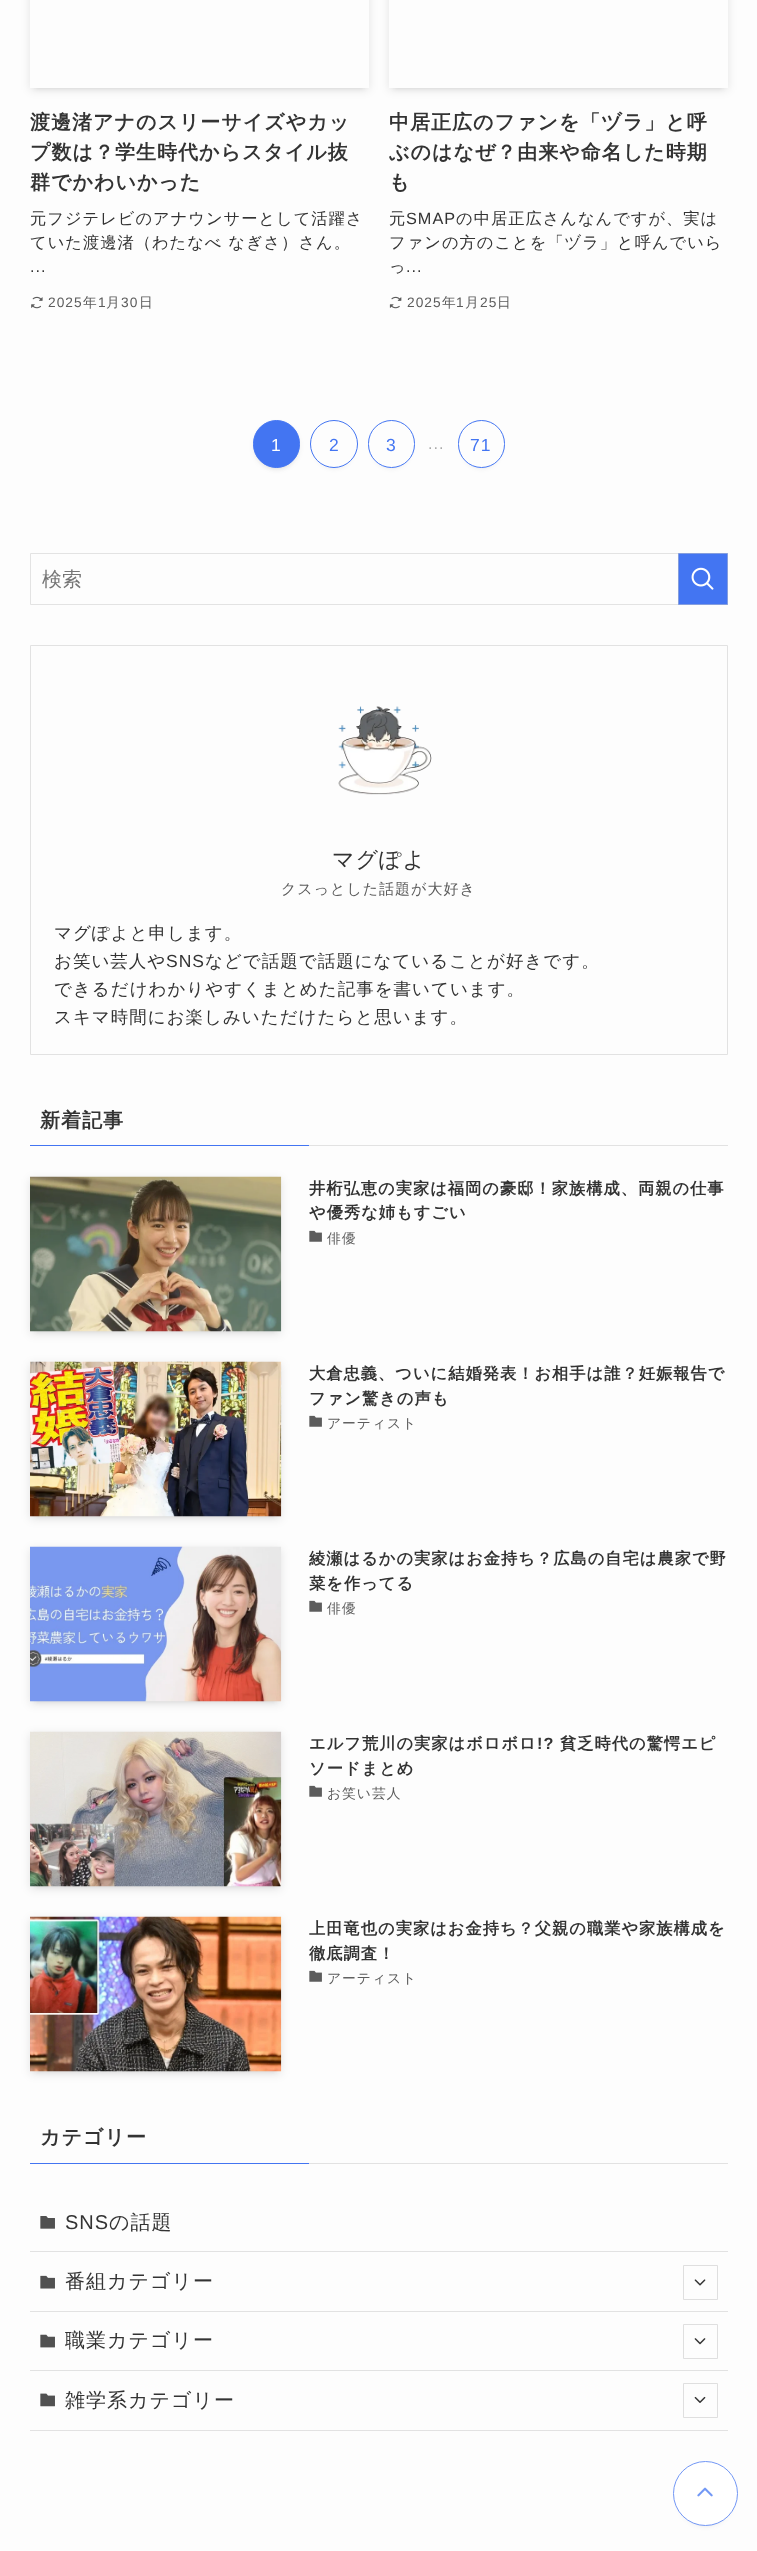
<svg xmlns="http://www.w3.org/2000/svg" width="757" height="2551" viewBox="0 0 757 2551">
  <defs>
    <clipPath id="clip1"><path d="M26 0H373V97H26ZM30-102H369V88H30Z" clip-rule="evenodd"/></clipPath>
    <clipPath id="clip2"><path d="M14 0H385V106H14ZM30-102H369V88H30Z" clip-rule="evenodd"/></clipPath>
    <clipPath id="clip3"><path d="M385 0H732V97H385ZM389-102H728V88H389Z" clip-rule="evenodd"/></clipPath>
    <clipPath id="clip4"><path d="M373 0H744V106H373ZM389-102H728V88H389Z" clip-rule="evenodd"/></clipPath>
    <clipPath id="clip5"><path d="M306 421H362V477H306ZM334 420C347.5 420 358 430.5 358 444C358 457.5 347.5 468 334 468C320.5 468 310 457.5 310 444C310 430.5 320.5 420 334 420Z" clip-rule="evenodd"/></clipPath>
    <clipPath id="clip6"><path d="M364 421H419V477H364ZM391.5 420C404.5 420 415 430.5 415 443.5V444.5C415 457.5 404.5 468 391.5 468C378.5 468 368 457.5 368 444.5V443.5C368 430.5 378.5 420 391.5 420Z" clip-rule="evenodd"/></clipPath>
    <clipPath id="clip7"><path d="M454 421H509V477H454ZM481.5 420C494.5 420 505 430.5 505 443.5V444.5C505 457.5 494.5 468 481.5 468C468.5 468 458 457.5 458 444.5V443.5C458 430.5 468.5 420 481.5 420Z" clip-rule="evenodd"/></clipPath>
  </defs>
  <rect width="100%" height="100%" fill="#fdfdfd"/>
  <g clip-path="url(#clip1)">
    <path d="M35 -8h329v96H35z" fill="#0000001a" filter="blur(2.5px)"/>
  </g>
  <g clip-path="url(#clip2)">
    <path d="M30 -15h339v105H30z" fill="#0000001a" filter="blur(5px)"/>
  </g>
  <image x="31" y="296" width="12" height="13" href="img/1.png"/>
  <g clip-path="url(#clip3)">
    <path d="M394 -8h329v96H394z" fill="#0000001a" filter="blur(2.5px)"/>
  </g>
  <g clip-path="url(#clip4)">
    <path d="M389 -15h339v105H389z" fill="#0000001a" filter="blur(5px)"/>
  </g>
  <image x="389" y="296" width="13" height="13" href="img/2.png"/>
  <rect x="258" y="430" width="37" height="38" rx="18.5" fill="#0000001a" filter="blur(2.5px)"/>
  <rect x="253" y="423" width="47" height="47" rx="23.5" fill="#0000000d" filter="blur(2.5px)"/>
  <rect x="253.5" y="420.5" width="46" height="47" rx="23" fill="#4375f2" stroke="#4375f2"/>
  <g clip-path="url(#clip5)">
    <rect x="315" y="430" width="38" height="38" rx="19" fill="#0000001a" filter="blur(2.5px)"/>
  </g>
  <circle cx="334" cy="444" r="23.5" fill="none" stroke="#4375f2"/>
  <g clip-path="url(#clip6)">
    <rect x="373" y="430" width="37" height="38" rx="18.5" fill="#0000001a" filter="blur(2.5px)"/>
  </g>
  <rect x="368.5" y="420.5" width="46" height="47" rx="23" fill="none" stroke="#4375f2"/>
  <g clip-path="url(#clip7)">
    <rect x="463" y="430" width="37" height="38" rx="18.5" fill="#0000001a" filter="blur(2.5px)"/>
  </g>
  <rect x="458.5" y="420.5" width="46" height="47" rx="23" fill="none" stroke="#4375f2"/>
  <path d="M30.5 553.5h697v51H30.5z" fill="none" stroke="#e3e3e3"/>
  <path d="M678.5 553.5h49v51H678.5z" fill="#4375f2" stroke="#859edd"/>
  <image x="691" y="567" width="23" height="23" href="img/3.png"/>
  <path d="M30.5 645.5h697v409H30.5z" fill="none" stroke="#e2e2e2"/>
  <image x="338" y="706" width="94" height="89" href="img/4.png"/>
  <path d="M30 1145h279v1H30z" fill="#4375f2"/>
  <path d="M309 1145h419v1H309z" fill="#e2e2e2"/>
  <path d="M35 1186h241v145H35z" fill="#0000001a" filter="blur(2.5px)"/>
  <path d="M30 1179h251v155H30z" fill="#0000001a" filter="blur(5px)"/>
  <image x="30" y="1176" width="252" height="156" href="img/5.png"/>
  <image x="309" y="1230" width="13" height="12" href="img/6.png"/>
  <path d="M35 1371h241v145H35z" fill="#0000001a" filter="blur(2.5px)"/>
  <path d="M30 1364h251v155H30z" fill="#0000001a" filter="blur(5px)"/>
  <image x="30" y="1361" width="252" height="156" href="img/7.png"/>
  <image x="309" y="1415" width="13" height="12" href="img/6.png"/>
  <path d="M35 1556h241v145H35z" fill="#0000001a" filter="blur(2.5px)"/>
  <path d="M30 1549h251v155H30z" fill="#0000001a" filter="blur(5px)"/>
  <image x="30" y="1546" width="252" height="156" href="img/8.png"/>
  <image x="309" y="1600" width="13" height="12" href="img/6.png"/>
  <path d="M35 1741h241v145H35z" fill="#0000001a" filter="blur(2.5px)"/>
  <path d="M30 1734h251v155H30z" fill="#0000001a" filter="blur(5px)"/>
  <image x="30" y="1731" width="252" height="156" href="img/9.png"/>
  <image x="309" y="1785" width="13" height="12" href="img/6.png"/>
  <path d="M35 1926h241v145H35z" fill="#0000001a" filter="blur(2.5px)"/>
  <path d="M30 1919h251v155H30z" fill="#0000001a" filter="blur(5px)"/>
  <image x="30" y="1916" width="252" height="156" href="img/10.png"/>
  <image x="309" y="1970" width="13" height="12" href="img/6.png"/>
  <path d="M30 2163h279v1H30z" fill="#4375f2"/>
  <path d="M309 2163h419v1H309z" fill="#e2e2e2"/>
  <path d="M30 2251h698v1H30z" fill="#e2e2e2"/>
  <image x="40" y="2216" width="15" height="13" href="img/11.png"/>
  <path d="M30 2311h698v1H30z" fill="#e2e2e2"/>
  <image x="40" y="2275" width="15" height="14" href="img/12.png"/>
  <image x="694" y="2279" width="12" height="7" href="img/13.png"/>
  <path d="M683.5 2265.5h34v34H683.5z" fill="none" stroke="#dfdfdf"/>
  <path d="M30 2370h698v1H30z" fill="#e2e2e2"/>
  <image x="40" y="2334" width="15" height="14" href="img/14.png"/>
  <image x="694" y="2338" width="12" height="7" href="img/15.png"/>
  <path d="M683.5 2324.5h34v34H683.5z" fill="none" stroke="#dfdfdf"/>
  <path d="M30 2430h698v1H30z" fill="#e2e2e2"/>
  <image x="40" y="2393" width="15" height="14" href="img/16.png"/>
  <image x="694" y="2396" width="12" height="7" href="img/17.png"/>
  <path d="M683.5 2383.5h34v34H683.5z" fill="none" stroke="#dfdfdf"/>
  <rect x="678" y="2471" width="55" height="55" rx="27.5" fill="#3f3f3f1a" filter="blur(2.5px)"/>
  <circle cx="705.5" cy="2493.5" r="32" fill="#fff" stroke="#7297f5"/>
  <image x="697" y="2487" width="16" height="10" href="img/18.png"/>
  <g font-family="WenQuanYi Zen Hei" font-size="20" font-weight="bold" letter-spacing="1" fill="#333">
    <text x="30" y="129">渡邊渚アナのスリーサイズやカッ</text>
    <text x="30" y="159">プ数は？学生時代からスタイル抜</text>
    <text x="30" y="189">群でかわいかった</text>
  </g>
  <g font-family="WenQuanYi Zen Hei" font-size="16.25" font-weight="500" letter-spacing="1" fill="#333">
    <text x="30" y="224">元フジテレビのアナウンサーとして活躍さ</text>
    <text x="30" y="248">ていた渡邊渚（わたなべ なぎさ）さん。</text>
  </g>
  <text x="30" y="272" font-family="Liberation Sans" font-size="16.25" letter-spacing="1" fill="#333">...</text>
  <text x="48" y="307" font-family="Liberation Sans" font-size="13.75" letter-spacing="1" fill="#5b5b5b">2025</text>
  <text x="83" y="307" font-family="WenQuanYi Zen Hei" font-size="13.75" font-weight="500" letter-spacing="1" fill="#5b5b5b">年</text>
  <text x="98" y="307" font-family="Liberation Sans" font-size="13.75" letter-spacing="1" fill="#5b5b5b">1</text>
  <text x="106" y="307" font-family="WenQuanYi Zen Hei" font-size="13.75" font-weight="500" letter-spacing="1" fill="#5b5b5b">月</text>
  <text x="121" y="307" font-family="Liberation Sans" font-size="13.75" letter-spacing="1" fill="#5b5b5b">30</text>
  <text x="139" y="307" font-family="WenQuanYi Zen Hei" font-size="13.75" font-weight="500" letter-spacing="1" fill="#5b5b5b">日</text>
  <g font-family="WenQuanYi Zen Hei" font-size="20" font-weight="bold" letter-spacing="1" fill="#333">
    <text x="389" y="129">中居正広のファンを「ヅラ」と呼</text>
    <text x="389" y="159">ぶのはなぜ？由来や命名した時期</text>
    <text x="389" y="189">も</text>
  </g>
  <text x="389" y="224" font-family="WenQuanYi Zen Hei" font-size="16.25" font-weight="500" letter-spacing="1" fill="#333">元</text>
  <text x="406" y="224" font-family="Liberation Sans" font-size="16.25" letter-spacing="1" fill="#333">SMAP</text>
  <g font-family="WenQuanYi Zen Hei" font-size="16.25" font-weight="500" letter-spacing="1" fill="#333">
    <text x="456" y="224">の中居正広さんなんですが、実は</text>
    <text x="389" y="248">ファンの方のことを「ヅラ」と呼んでいら</text>
    <text x="389" y="272">っ</text>
  </g>
  <text x="406" y="272" font-family="Liberation Sans" font-size="16.25" letter-spacing="1" fill="#333">...</text>
  <text x="407" y="307" font-family="Liberation Sans" font-size="13.75" letter-spacing="1" fill="#5b5b5b">2025</text>
  <text x="442" y="307" font-family="WenQuanYi Zen Hei" font-size="13.75" font-weight="500" letter-spacing="1" fill="#5b5b5b">年</text>
  <text x="456" y="307" font-family="Liberation Sans" font-size="13.75" letter-spacing="1" fill="#5b5b5b">1</text>
  <text x="465" y="307" font-family="WenQuanYi Zen Hei" font-size="13.75" font-weight="500" letter-spacing="1" fill="#5b5b5b">月</text>
  <text x="480" y="307" font-family="Liberation Sans" font-size="13.75" letter-spacing="1" fill="#5b5b5b">25</text>
  <text x="497" y="307" font-family="WenQuanYi Zen Hei" font-size="13.75" font-weight="500" letter-spacing="1" fill="#5b5b5b">日</text>
  <text x="271" y="451" font-family="Liberation Sans" font-size="17.5" letter-spacing="1" fill="#fff">1</text>
  <g font-family="Liberation Sans" font-size="17.5" letter-spacing="1" fill="#4375f2">
    <text x="329" y="451">2</text>
    <text x="386" y="451">3</text>
  </g>
  <text x="428" y="449" font-family="Liberation Sans" font-size="16.25" letter-spacing="1" fill="#aaa">...</text>
  <text x="470" y="451" font-family="Liberation Sans" font-size="17.5" letter-spacing="1" fill="#4375f2">71</text>
  <text x="42" y="586" font-family="WenQuanYi Zen Hei" font-size="20" font-weight="500" fill="#757575">検索</text>
  <text x="332" y="867" font-family="WenQuanYi Zen Hei" font-size="22" font-weight="500" letter-spacing="1" fill="#333">マグぽよ</text>
  <text x="281" y="894" font-family="WenQuanYi Zen Hei" font-size="15" font-weight="500" letter-spacing="1" fill="#5b5b5b">クスっとした話題が大好き</text>
  <g font-family="WenQuanYi Zen Hei" font-size="17.5" font-weight="500" letter-spacing="1" fill="#333">
    <text x="54" y="939">マグぽよと申します。</text>
    <text x="54" y="967">お笑い芸人や</text>
  </g>
  <text x="166" y="967" font-family="Liberation Sans" font-size="17.5" letter-spacing="1" fill="#333">SNS</text>
  <g font-family="WenQuanYi Zen Hei" font-size="17.5" font-weight="500" letter-spacing="1" fill="#333">
    <text x="205" y="967">などで話題で話題になていることが好きです。</text>
    <text x="54" y="995">できるだけわかりやすくまとめた記事を書いています。</text>
    <text x="54" y="1023">スキマ時間にお楽しみいただけたらと思います。</text>
  </g>
  <text x="40" y="1127" font-family="WenQuanYi Zen Hei" font-size="20" font-weight="bold" letter-spacing="1" fill="#333">新着記事</text>
  <g font-family="WenQuanYi Zen Hei" font-size="16.25" font-weight="bold" letter-spacing="1" fill="#333">
    <text x="309" y="1194">井桁弘恵の実家は福岡の豪邸！家族構成、両親の仕事</text>
    <text x="309" y="1218">や優秀な姉もすごい</text>
  </g>
  <text x="327" y="1243" font-family="WenQuanYi Zen Hei" font-size="13.75" font-weight="500" letter-spacing="1" fill="#5b5b5b">俳優</text>
  <g font-family="WenQuanYi Zen Hei" font-size="16.25" font-weight="bold" letter-spacing="1" fill="#333">
    <text x="309" y="1379">大倉忠義、ついに結婚発表！お相手は誰？妊娠報告で</text>
    <text x="309" y="1404">ファン驚きの声も</text>
  </g>
  <text x="327" y="1428" font-family="WenQuanYi Zen Hei" font-size="13.75" font-weight="500" letter-spacing="1" fill="#5b5b5b">アーティスト</text>
  <g font-family="WenQuanYi Zen Hei" font-size="16.25" font-weight="bold" letter-spacing="1" fill="#333">
    <text x="309" y="1564">綾瀬はるかの実家はお金持ち？広島の自宅は農家で野</text>
    <text x="309" y="1589">菜を作ってる</text>
  </g>
  <text x="327" y="1613" font-family="WenQuanYi Zen Hei" font-size="13.75" font-weight="500" letter-spacing="1" fill="#5b5b5b">俳優</text>
  <text x="309" y="1749" font-family="WenQuanYi Zen Hei" font-size="16.25" font-weight="bold" letter-spacing="1" fill="#333">エルフ荒川の実家はボロボロ</text>
  <text x="537" y="1749" font-family="Liberation Sans" font-size="16.25" font-weight="bold" letter-spacing="1" fill="#333">!?</text>
  <g font-family="WenQuanYi Zen Hei" font-size="16.25" font-weight="bold" letter-spacing="1" fill="#333">
    <text x="560" y="1749">貧乏時代の驚愕エピ</text>
    <text x="309" y="1774">ソードまとめ</text>
  </g>
  <text x="327" y="1798" font-family="WenQuanYi Zen Hei" font-size="13.75" font-weight="500" letter-spacing="1" fill="#5b5b5b">お笑い芸人</text>
  <g font-family="WenQuanYi Zen Hei" font-size="16.25" font-weight="bold" letter-spacing="1" fill="#333">
    <text x="309" y="1934">上田竜也の実家はお金持ち？父親の職業や家族構成を</text>
    <text x="309" y="1959">徹底調査！</text>
  </g>
  <text x="327" y="1983" font-family="WenQuanYi Zen Hei" font-size="13.75" font-weight="500" letter-spacing="1" fill="#5b5b5b">アーティスト</text>
  <text x="40" y="2144" font-family="WenQuanYi Zen Hei" font-size="20" font-weight="bold" letter-spacing="1" fill="#333">カテゴリー</text>
  <text x="65" y="2229" font-family="Liberation Sans" font-size="20" letter-spacing="1" fill="#333">SNS</text>
  <g font-family="WenQuanYi Zen Hei" font-size="20" font-weight="500" letter-spacing="1" fill="#333">
    <text x="109" y="2229">の話題</text>
    <text x="65" y="2288">番組カテゴリー</text>
    <text x="65" y="2347">職業カテゴリー</text>
    <text x="65" y="2407">雑学系カテゴリー</text>
  </g>
</svg>
